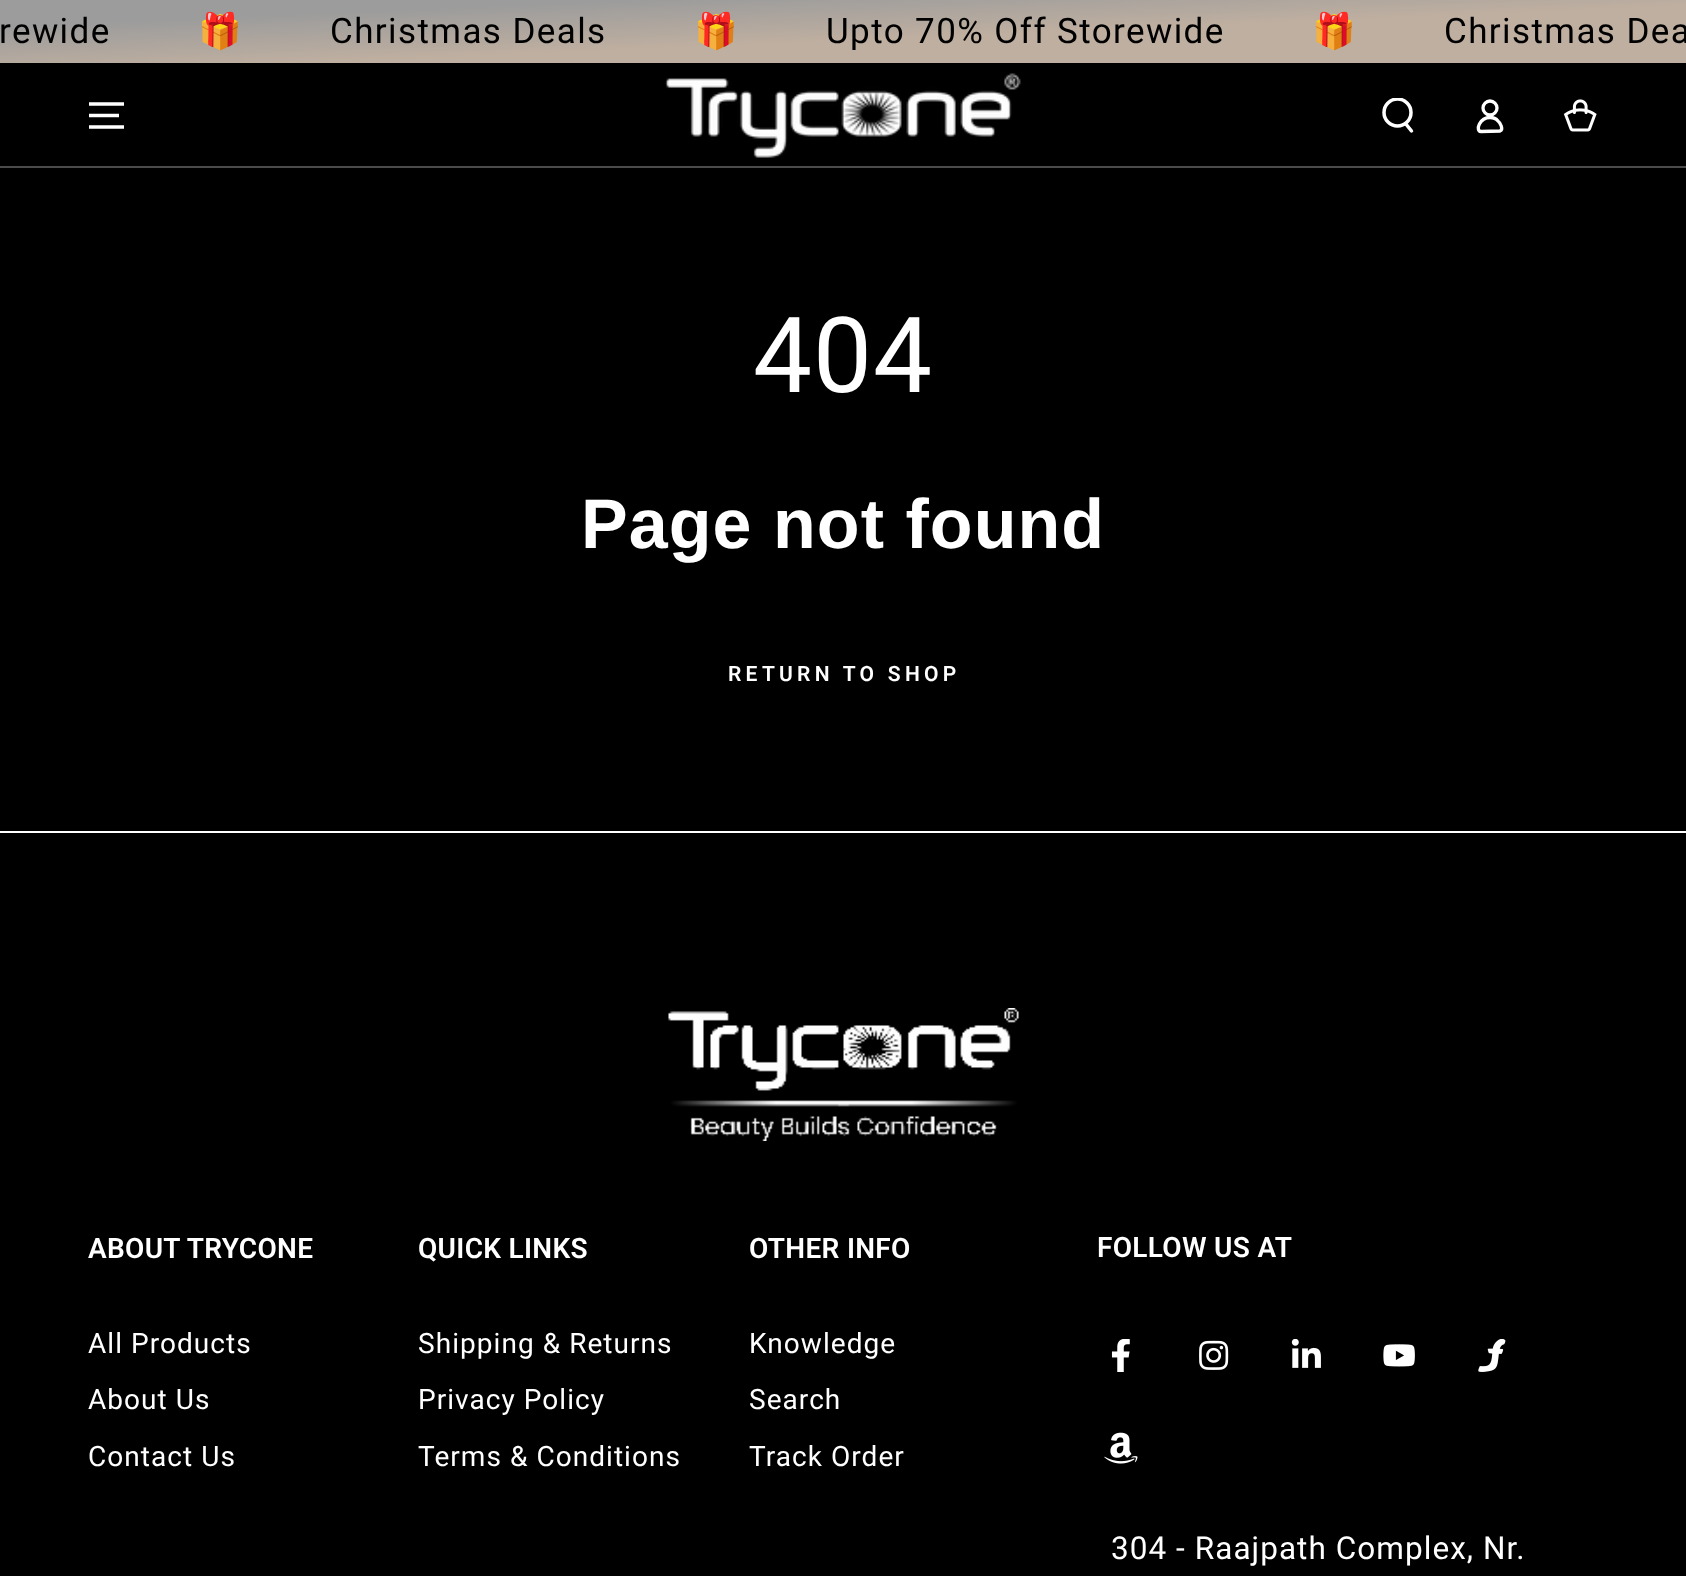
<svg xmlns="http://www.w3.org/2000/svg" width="1686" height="1576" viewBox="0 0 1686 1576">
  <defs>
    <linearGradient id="g1" gradientUnits="userSpaceOnUse" x1="841" y1="-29" x2="846" y2="92"><stop offset="0.17" stop-color="#9c9c9c"/><stop offset="0.58" stop-color="#bfafa0"/></linearGradient>
    <clipPath id="clip1"><path d="M1381 98h35v35H1381z"/></clipPath>
  </defs>
  <rect width="100%" height="100%" fill="#000"/>
  <path d="M0 0h1686v63H0z" fill="url(#g1)"/>
  <path d="M0 166h1686v2H0z" fill="#4b4b4b"/>
  <path d="M89 127H124M89 115.5H119M89 104H124" fill="none" stroke="#fff" stroke-width="3.3"/>
  <image x="665" y="73" width="356" height="85" href="img/1.png"/>
  <g clip-path="url(#clip1)">
    <circle cx="1397.5" cy="112.5" r="13.5" fill="none" stroke="#fff" stroke-width="3.5"/>
  </g>
  <path d="M1405.5 123.5L1411.5 131" fill="none" stroke="#fff" stroke-width="3.5" stroke-linecap="round"/>
  <path d="M1490 117.5C1479.5 117.5 1475 131 1481 131.5L1500 131C1504 129.5 1500 122.5 1498 121C1496 118.5 1493 117.5 1490 117.5Z" fill="none" stroke="#fff" stroke-width="3.3"/>
  <circle cx="1490" cy="108" r="7" fill="none" stroke="#fff" stroke-width="3.3"/>
  <image x="1563" y="99" width="34" height="33" href="img/2.png"/>
  <path d="M0 831h1686v2H0z" fill="#fff"/>
  <image x="668" y="1008" width="351" height="133" href="img/3.png"/>
  <image x="1111" y="1339" width="19" height="33" href="img/4.png"/>
  <image x="1199" y="1340" width="30" height="30" href="img/5.png"/>
  <image x="1291" y="1339" width="30" height="29" href="img/6.png"/>
  <image x="1383" y="1344" width="32" height="23" href="img/7.png"/>
  <image x="1478" y="1339" width="28" height="33" href="img/8.png"/>
  <image x="1104" y="1432" width="34" height="32" href="img/9.png"/>
  <text x="-1" y="43" font-family="Roboto" font-size="35" letter-spacing="1.4" fill="#000">rewide</text>
  <text x="198" y="43" font-family="Noto Color Emoji" font-size="35" letter-spacing="1.4" fill="#000">🎁</text>
  <text x="330" y="43" font-family="Roboto" font-size="35" letter-spacing="1.4" fill="#000">Christmas Deals</text>
  <text x="694" y="43" font-family="Noto Color Emoji" font-size="35" letter-spacing="1.4" fill="#000">🎁</text>
  <text x="826" y="43" font-family="Roboto" font-size="35" letter-spacing="1.4" fill="#000">Upto 70% Off Storewide</text>
  <text x="1312" y="43" font-family="Noto Color Emoji" font-size="35" letter-spacing="1.4" fill="#000">🎁</text>
  <text x="1444" y="43" font-family="Roboto" font-size="35" letter-spacing="1.4" fill="#000">Christmas Dea</text>
  <text x="753" y="392" font-family="Roboto" font-size="105" letter-spacing="1.05" fill="#fff">404</text>
  <text x="581" y="548" font-family="Liberation Sans" font-size="70" font-weight="bold" letter-spacing="1.05" fill="#fff">Page not found</text>
  <text x="728" y="681" font-family="Roboto" font-size="21" font-weight="600" letter-spacing="4.25" fill="#fff">RETURN TO SHOP</text>
  <text x="88" y="1258" font-family="Roboto" font-size="28" font-weight="600" letter-spacing="0.3" fill="#fff">ABOUT TRYCONE</text>
  <g font-family="Roboto" font-size="28" letter-spacing="1.05" fill="#fff">
    <text x="88" y="1353">All Products</text>
    <text x="88" y="1409">About Us</text>
    <text x="88" y="1466">Contact Us</text>
  </g>
  <text x="418" y="1258" font-family="Roboto" font-size="28" font-weight="600" letter-spacing="0.3" fill="#fff">QUICK LINKS</text>
  <g font-family="Roboto" font-size="28" letter-spacing="1.05" fill="#fff">
    <text x="418" y="1353">Shipping &amp; Returns</text>
    <text x="418" y="1409">Privacy Policy</text>
    <text x="418" y="1466">Terms &amp; Conditions</text>
  </g>
  <text x="749" y="1258" font-family="Roboto" font-size="28" font-weight="600" letter-spacing="0.3" fill="#fff">OTHER INFO</text>
  <g font-family="Roboto" font-size="28" letter-spacing="1.05" fill="#fff">
    <text x="749" y="1353">Knowledge</text>
    <text x="749" y="1409">Search</text>
    <text x="749" y="1466">Track Order</text>
  </g>
  <text x="1097" y="1257" font-family="Roboto" font-size="28" font-weight="600" letter-spacing="0.3" fill="#fff">FOLLOW US AT</text>
  <text x="1111" y="1559" font-family="Roboto" font-size="31.5" letter-spacing="1.05" fill="#fff">304 - Raajpath Complex, Nr.</text>
</svg>
